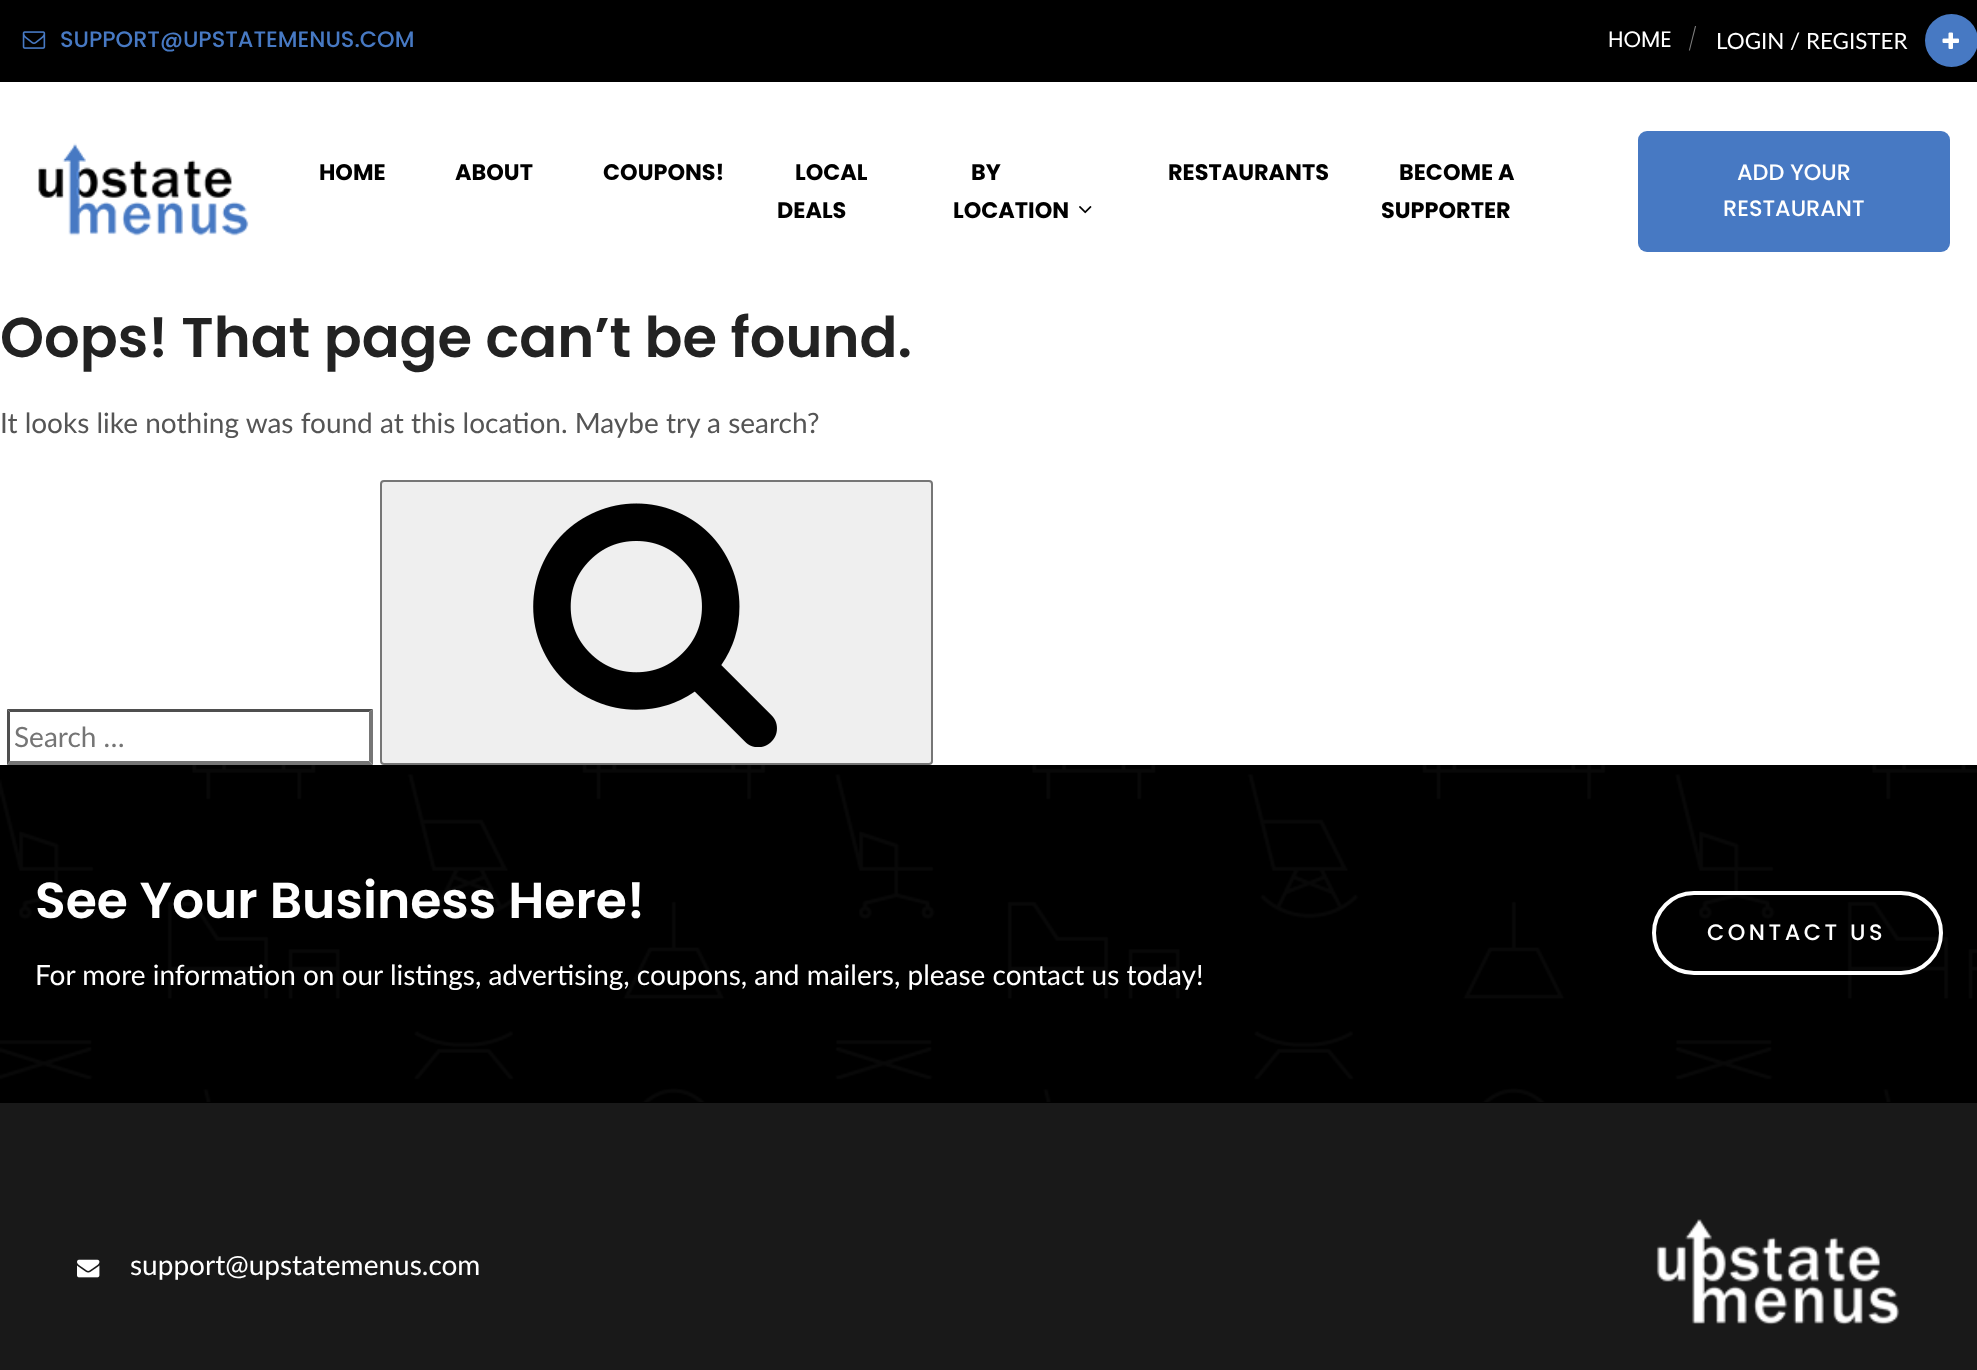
<svg xmlns="http://www.w3.org/2000/svg" width="1977" height="1370" viewBox="0 0 1977 1370">
  <rect width="100%" height="100%" fill="#fff"/>
  <path d="M0 0h1977v82H0z" fill="#000"/>
  <image x="22" y="31" width="24" height="18" href="img/1.png"/>
  <circle cx="1951.5" cy="40.5" r="26.5" fill="#4779c3"/>
  <image x="1942" y="32" width="17" height="17" href="img/2.png"/>
  <image x="38" y="143" width="211" height="93" href="img/3.png"/>
  <image x="1079" y="206" width="13" height="8" href="img/4.png"/>
  <rect x="1638" y="131" width="312" height="121" rx="9" fill="#4779c3"/>
  <path d="M7 709H373L369 712H10Z" fill="#4f4f4f"/>
  <path d="M373 709V765L369 761V712Z" fill="#767676"/>
  <path d="M373 765H7L10 761H369Z" fill="#767676"/>
  <path d="M7 765V709L10 712V761Z" fill="#4f4f4f"/>
  <rect x="381" y="481" width="551" height="283" rx="3" fill="#efefef" stroke="#767676" stroke-width="2"/>
  <image x="533" y="503" width="244" height="244" href="img/5.png"/>
  <path d="M0 765h1977v338H0z" fill="#000"/>
  <image x="0" y="765" width="1977" height="337" href="img/6.png"/>
  <rect x="1654" y="893" width="287" height="80" rx="40" fill="none" stroke="#fff" stroke-width="4"/>
  <path d="M0 1103h1977v267H0z" fill="#191919"/>
  <image x="77" y="1259" width="23" height="19" href="img/7.png"/>
  <image x="1656" y="1219" width="244" height="106" href="img/8.png"/>
  <text x="60" y="47" font-family="Poppins" font-size="22.4" font-weight="500" fill="#4779c3">SUPPORT@UPSTATEMENUS.COM</text>
  <text x="1608" y="47" font-family="Poppins" font-size="22.4" fill="#fff">HOME</text>
  <text x="1688" y="47" font-family="Poppins" font-size="22.4" font-weight="200" fill="#808080">/</text>
  <text x="1716" y="49" font-family="Lato" font-size="22.4" fill="#fff">LOGIN / REGISTER</text>
  <g font-family="Poppins" font-size="22.4" font-weight="bold" fill="#000">
    <text x="319" y="180">HOME</text>
    <text x="455" y="180">ABOUT</text>
    <text x="603" y="180">COUPONS!</text>
    <text x="795" y="180">LOCAL</text>
    <text x="777" y="218">DEALS</text>
    <text x="971" y="180">BY</text>
    <text x="953" y="218">LOCATION</text>
    <text x="1168" y="180">RESTAURANTS</text>
    <text x="1399" y="180">BECOME A</text>
    <text x="1381" y="218">SUPPORTER</text>
  </g>
  <g font-family="Poppins" font-size="22.4" font-weight="500" fill="#fff">
    <text x="1737" y="180">ADD YOUR</text>
    <text x="1723" y="216">RESTAURANT</text>
  </g>
  <text x="0" y="357" font-family="Poppins" font-size="56" font-weight="600" fill="#222">Oops! That page can’t be found.</text>
  <text x="0" y="433" font-family="Lato" font-size="28" fill="#555">It looks like nothing was found at this location. Maybe try a search?</text>
  <text x="14" y="747" font-family="Lato" font-size="28" fill="#757575">Search …</text>
  <text x="35" y="918" font-family="Poppins" font-size="50.4" font-weight="600" fill="#fff">See Your Business Here!</text>
  <text x="35" y="985" font-family="Lato" font-size="28" fill="#fff">For more information on our listings, advertising, coupons, and mailers, please contact us today!</text>
  <text x="1707" y="940" font-family="Poppins" font-size="22.4" font-weight="500" letter-spacing="3.5" fill="#fff">CONTACT US</text>
  <text x="130" y="1275" font-family="Lato" font-size="28" fill="#fff">support@upstatemenus.com</text>
</svg>
